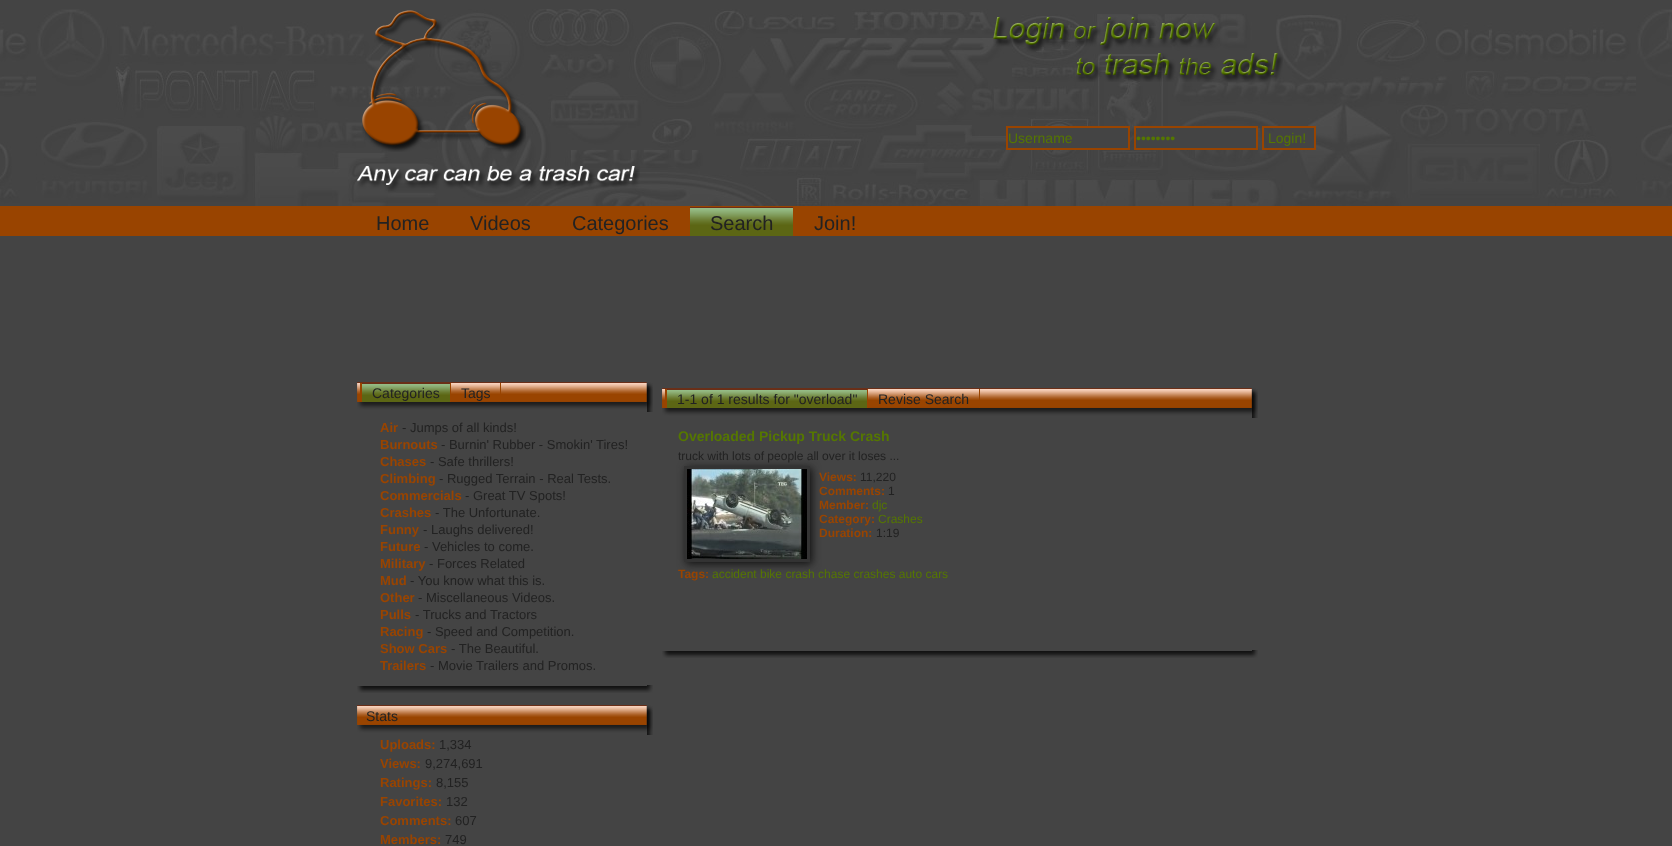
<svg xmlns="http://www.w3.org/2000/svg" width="1672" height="846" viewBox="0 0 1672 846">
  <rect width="100%" height="100%" fill="#444"/>
  <image x="0" y="9" width="1672" height="197" href="img/1.png"/>
  <image x="362" y="10" width="164" height="142" href="img/2.png"/>
  <image x="993" y="17" width="290" height="65" href="img/3.png"/>
  <path d="M1007 127h122v22H1007z" fill="#444" stroke="#940" stroke-width="2"/>
  <path d="M1137 128h119v20H1137z" fill="#444"/>
  <path d="M1135 127h122v22H1135z" fill="none" stroke="#940" stroke-width="2"/>
  <path d="M1274 128h40v20H1274z" fill="#444"/>
  <path d="M1263 127h52v22H1263z" fill="none" stroke="#940" stroke-width="2"/>
  <image x="357" y="166" width="283" height="25" href="img/4.png"/>
  <path d="M0 206h1672v30H0z" fill="#940"/>
  <image x="690" y="207" width="103" height="29" href="img/5.png"/>
  <image x="357" y="382" width="296" height="30" href="img/6.png"/>
  <path d="M360 383h2v19H360z" fill="#940"/>
  <image x="362" y="383" width="88" height="19" href="img/7.png"/>
  <path d="M450 383h1v19H450z" fill="#940"/>
  <path d="M500 383h1v19H500z" fill="#940"/>
  <image x="357" y="685" width="296" height="8" href="img/8.png"/>
  <image x="357" y="705" width="296" height="30" href="img/6.png"/>
  <image x="662" y="388" width="596" height="30" href="img/9.png"/>
  <path d="M665 389h2v19H665z" fill="#940"/>
  <image x="667" y="389" width="200" height="19" href="img/10.png"/>
  <path d="M867 389h1v19H867z" fill="#940"/>
  <path d="M979 389h1v19H979z" fill="#940"/>
  <path d="M686 468h126v96H686z" fill="#121212" filter="blur(4px)"/>
  <path d="M685.5 467.5h123v93H685.5z" fill="none" stroke="#333" stroke-width="3"/>
  <image x="687" y="469" width="120" height="90" href="img/11.png"/>
  <image x="662" y="650" width="596" height="8" href="img/12.png"/>
  <g font-family="Liberation Sans" font-size="14" fill="#570">
    <text x="1008" y="143">Username</text>
    <text x="1136" y="143">••••••••</text>
    <text x="1268" y="143">Login!</text>
  </g>
  <g font-family="Liberation Sans" font-size="20" fill="#222">
    <text x="376" y="230">Home</text>
    <text x="470" y="230">Videos</text>
    <text x="572" y="230">Categories</text>
    <text x="710" y="230">Search</text>
    <text x="814" y="230">Join!</text>
  </g>
  <g font-family="Liberation Sans" font-size="14" fill="#222">
    <text x="372" y="398">Categories</text>
    <text x="461" y="398">Tags</text>
  </g>
  <text x="380" y="432" font-family="Liberation Sans" font-size="13" font-weight="bold" fill="#940">Air</text>
  <text x="402" y="432" font-family="Liberation Sans" font-size="13" fill="#222">- Jumps of all kinds!</text>
  <text x="380" y="449" font-family="Liberation Sans" font-size="13" font-weight="bold" fill="#940">Burnouts</text>
  <text x="441" y="449" font-family="Liberation Sans" font-size="13" fill="#222">- Burnin' Rubber - Smokin' Tires!</text>
  <text x="380" y="466" font-family="Liberation Sans" font-size="13" font-weight="bold" fill="#940">Chases</text>
  <text x="430" y="466" font-family="Liberation Sans" font-size="13" fill="#222">- Safe thrillers!</text>
  <text x="380" y="483" font-family="Liberation Sans" font-size="13" font-weight="bold" fill="#940">Climbing</text>
  <text x="439" y="483" font-family="Liberation Sans" font-size="13" fill="#222">- Rugged Terrain - Real Tests.</text>
  <text x="380" y="500" font-family="Liberation Sans" font-size="13" font-weight="bold" fill="#940">Commercials</text>
  <text x="465" y="500" font-family="Liberation Sans" font-size="13" fill="#222">- Great TV Spots!</text>
  <text x="380" y="517" font-family="Liberation Sans" font-size="13" font-weight="bold" fill="#940">Crashes</text>
  <text x="435" y="517" font-family="Liberation Sans" font-size="13" fill="#222">- The Unfortunate.</text>
  <text x="380" y="534" font-family="Liberation Sans" font-size="13" font-weight="bold" fill="#940">Funny</text>
  <text x="423" y="534" font-family="Liberation Sans" font-size="13" fill="#222">- Laughs delivered!</text>
  <text x="380" y="551" font-family="Liberation Sans" font-size="13" font-weight="bold" fill="#940">Future</text>
  <text x="424" y="551" font-family="Liberation Sans" font-size="13" fill="#222">- Vehicles to come.</text>
  <text x="380" y="568" font-family="Liberation Sans" font-size="13" font-weight="bold" fill="#940">Military</text>
  <text x="429" y="568" font-family="Liberation Sans" font-size="13" fill="#222">- Forces Related</text>
  <text x="380" y="585" font-family="Liberation Sans" font-size="13" font-weight="bold" fill="#940">Mud</text>
  <text x="410" y="585" font-family="Liberation Sans" font-size="13" fill="#222">- You know what this is.</text>
  <text x="380" y="602" font-family="Liberation Sans" font-size="13" font-weight="bold" fill="#940">Other</text>
  <text x="418" y="602" font-family="Liberation Sans" font-size="13" fill="#222">- Miscellaneous Videos.</text>
  <text x="380" y="619" font-family="Liberation Sans" font-size="13" font-weight="bold" fill="#940">Pulls</text>
  <text x="415" y="619" font-family="Liberation Sans" font-size="13" fill="#222">- Trucks and Tractors</text>
  <text x="380" y="636" font-family="Liberation Sans" font-size="13" font-weight="bold" fill="#940">Racing</text>
  <text x="427" y="636" font-family="Liberation Sans" font-size="13" fill="#222">- Speed and Competition.</text>
  <text x="380" y="653" font-family="Liberation Sans" font-size="13" font-weight="bold" fill="#940">Show Cars</text>
  <text x="451" y="653" font-family="Liberation Sans" font-size="13" fill="#222">- The Beautiful.</text>
  <text x="380" y="670" font-family="Liberation Sans" font-size="13" font-weight="bold" fill="#940">Trailers</text>
  <text x="430" y="670" font-family="Liberation Sans" font-size="13" fill="#222">- Movie Trailers and Promos.</text>
  <text x="366" y="721" font-family="Liberation Sans" font-size="14" fill="#222">Stats</text>
  <text x="380" y="749" font-family="Liberation Sans" font-size="13" font-weight="bold" fill="#940">Uploads:</text>
  <text x="439" y="749" font-family="Liberation Sans" font-size="13" fill="#222">1,334</text>
  <text x="380" y="768" font-family="Liberation Sans" font-size="13" font-weight="bold" fill="#940">Views:</text>
  <text x="425" y="768" font-family="Liberation Sans" font-size="13" fill="#222">9,274,691</text>
  <text x="380" y="787" font-family="Liberation Sans" font-size="13" font-weight="bold" fill="#940">Ratings:</text>
  <text x="436" y="787" font-family="Liberation Sans" font-size="13" fill="#222">8,155</text>
  <text x="380" y="806" font-family="Liberation Sans" font-size="13" font-weight="bold" fill="#940">Favorites:</text>
  <text x="446" y="806" font-family="Liberation Sans" font-size="13" fill="#222">132</text>
  <text x="380" y="825" font-family="Liberation Sans" font-size="13" font-weight="bold" fill="#940">Comments:</text>
  <text x="455" y="825" font-family="Liberation Sans" font-size="13" fill="#222">607</text>
  <text x="380" y="844" font-family="Liberation Sans" font-size="13" font-weight="bold" fill="#940">Members:</text>
  <text x="445" y="844" font-family="Liberation Sans" font-size="13" fill="#222">749</text>
  <g font-family="Liberation Sans" font-size="14" fill="#222">
    <text x="677" y="404">1-1 of 1 results for "overload"</text>
    <text x="878" y="404">Revise Search</text>
  </g>
  <text x="678" y="441" font-family="Liberation Sans" font-size="14" font-weight="bold" fill="#570">Overloaded Pickup Truck Crash</text>
  <text x="678" y="460" font-family="Liberation Sans" font-size="12" fill="#222">truck with lots of people all over it loses ...</text>
  <text x="819" y="481" font-family="Liberation Sans" font-size="12" font-weight="bold" fill="#940">Views:</text>
  <text x="860" y="481" font-family="Liberation Sans" font-size="12" fill="#222">11,220</text>
  <text x="819" y="495" font-family="Liberation Sans" font-size="12" font-weight="bold" fill="#940">Comments:</text>
  <text x="888" y="495" font-family="Liberation Sans" font-size="12" fill="#222">1</text>
  <text x="819" y="509" font-family="Liberation Sans" font-size="12" font-weight="bold" fill="#940">Member:</text>
  <text x="872" y="509" font-family="Liberation Sans" font-size="12" fill="#570">djc</text>
  <text x="819" y="523" font-family="Liberation Sans" font-size="12" font-weight="bold" fill="#940">Category:</text>
  <text x="878" y="523" font-family="Liberation Sans" font-size="12" fill="#570">Crashes</text>
  <text x="819" y="537" font-family="Liberation Sans" font-size="12" font-weight="bold" fill="#940">Duration:</text>
  <text x="876" y="537" font-family="Liberation Sans" font-size="12" fill="#222">1:19</text>
  <text x="678" y="578" font-family="Liberation Sans" font-size="12" font-weight="bold" fill="#940">Tags:</text>
  <text x="712" y="578" font-family="Liberation Sans" font-size="12" fill="#570">accident bike crash chase crashes auto cars</text>
</svg>
